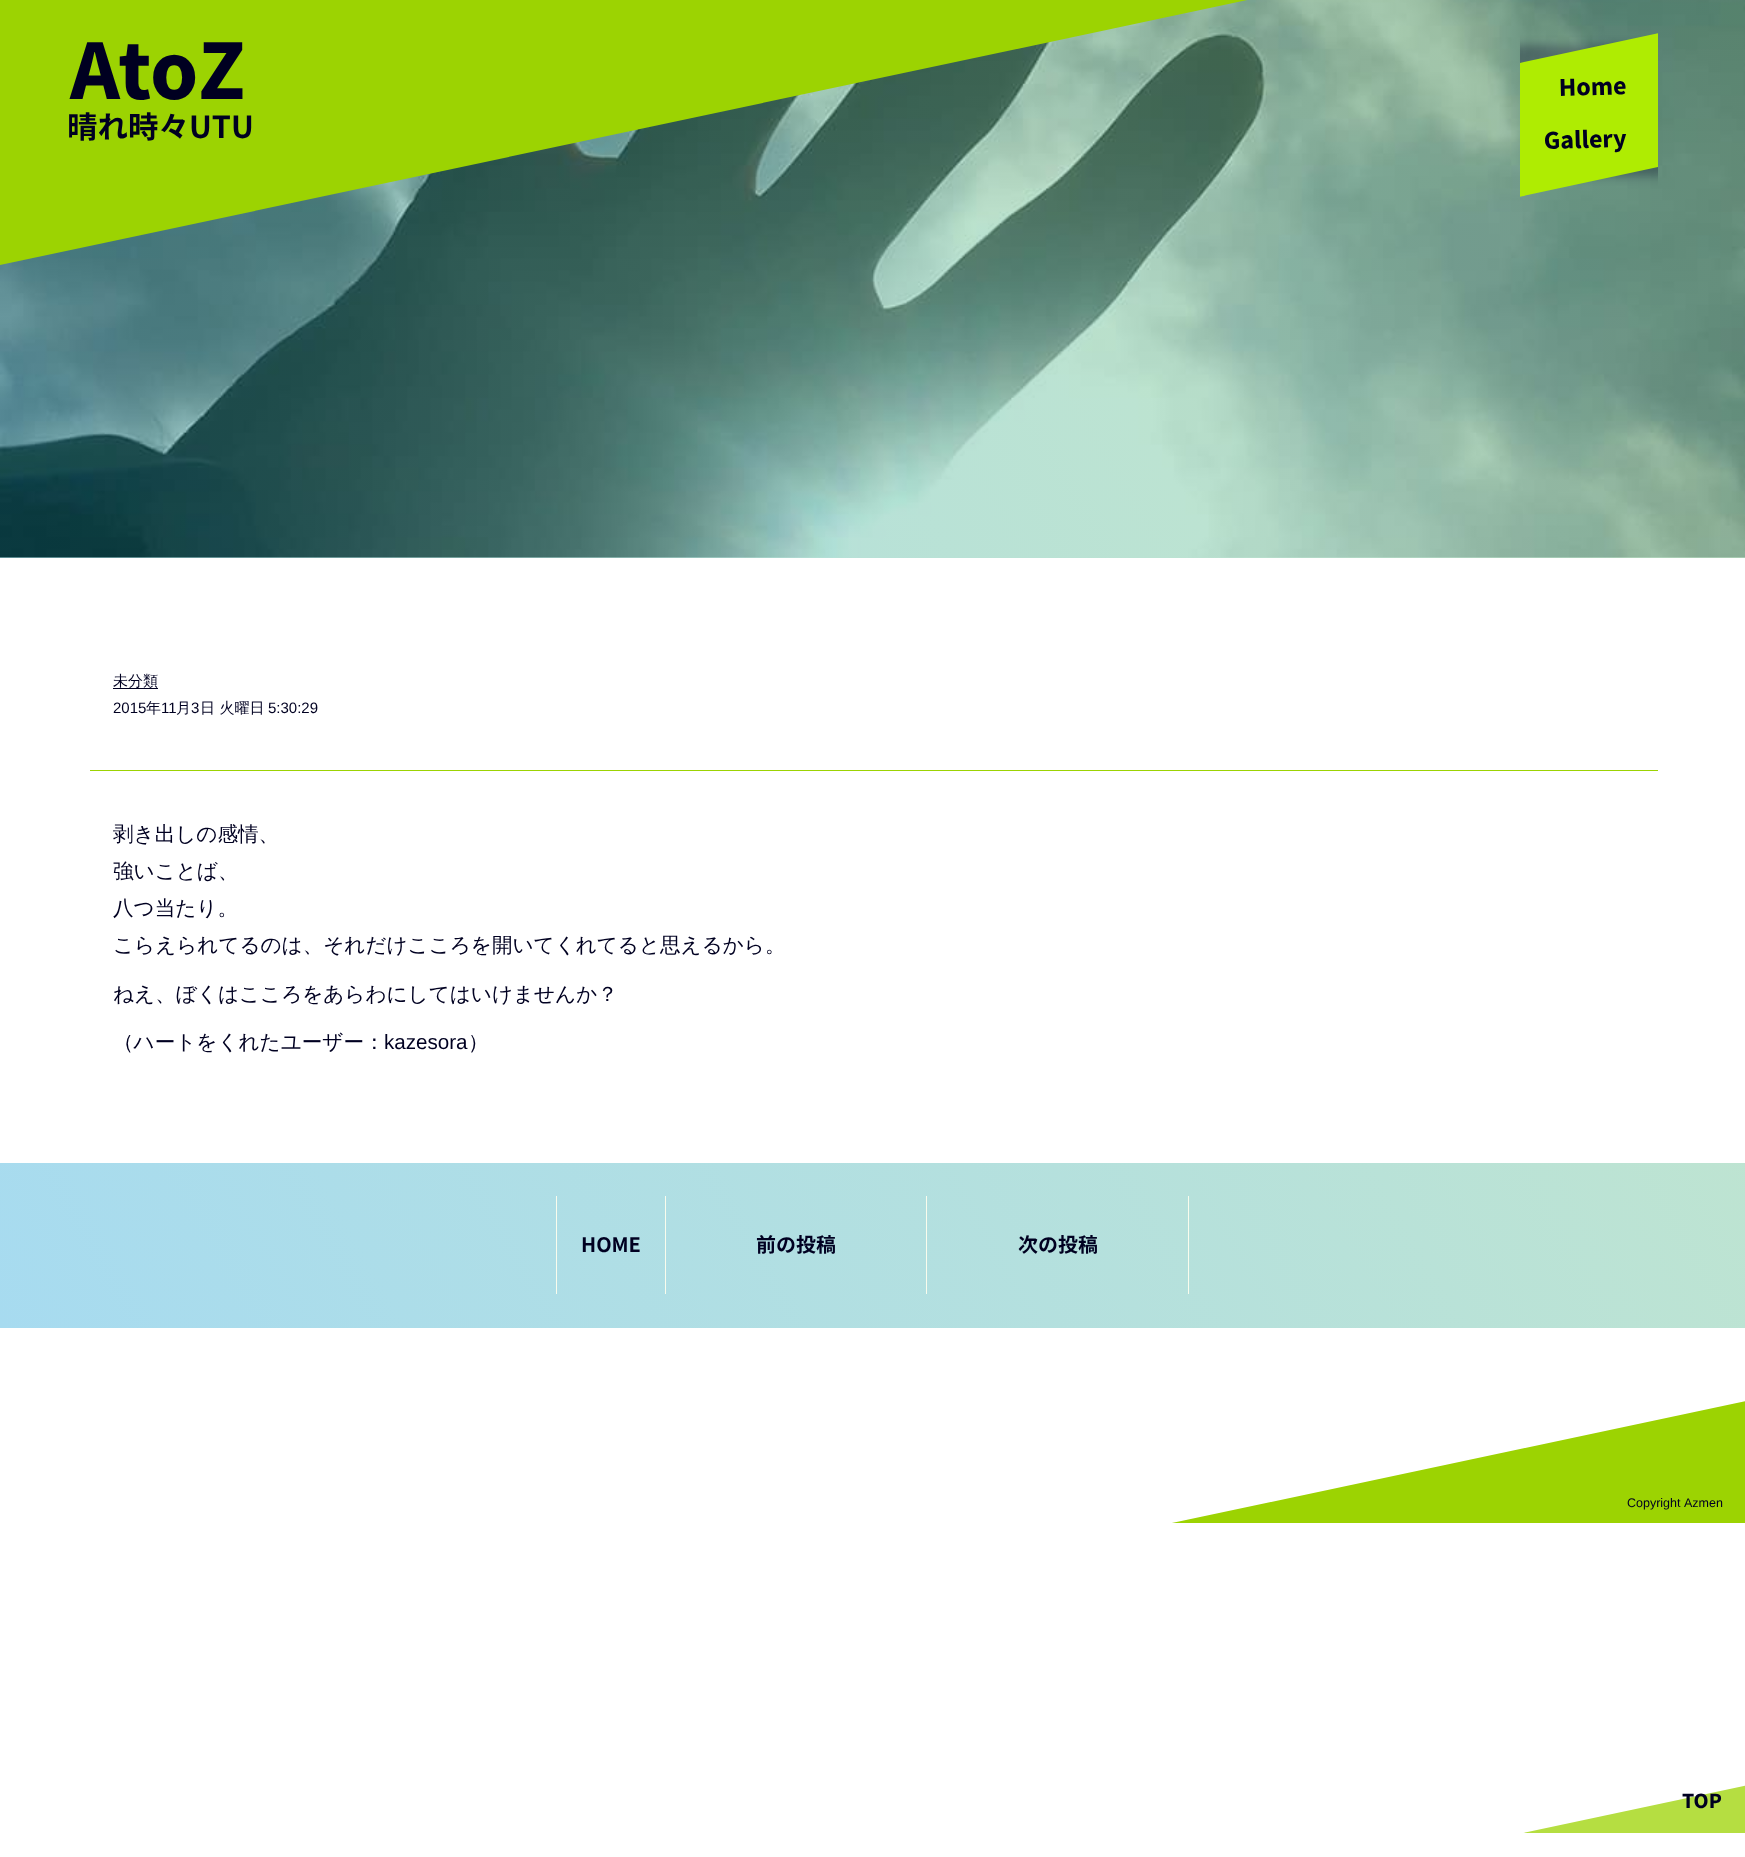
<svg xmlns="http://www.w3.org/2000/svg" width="1745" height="1857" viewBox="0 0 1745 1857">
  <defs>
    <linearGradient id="g1" gradientUnits="userSpaceOnUse" x1="688" y1="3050" x2="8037" y2="-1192"><stop offset="0" stop-color="#0197d2" stop-opacity="0.35"/><stop offset="0.5" stop-color="#9cd302" stop-opacity="0.35"/><stop offset="1" stop-color="#ffaad2" stop-opacity="0.35"/></linearGradient>
    <clipPath id="clip1"><path d="M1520 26h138v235H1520z"/></clipPath>
    <clipPath id="clip2"><path d="M1520 26h138v235H1520z"/></clipPath>
    <linearGradient id="g2" gradientUnits="userSpaceOnUse" x1="1055" y1="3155" x2="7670" y2="-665"><stop offset="0" stop-color="#a7dbf0"/><stop offset="0.5" stop-color="#ddf0a7"/><stop offset="1" stop-color="#ffe2f0"/></linearGradient>
    <clipPath id="clip3"><path d="M0 1373h1745v150H0z"/></clipPath>
    <clipPath id="clip4"><path d="M1461 1779h284v54H1461z"/></clipPath>
  </defs>
  <rect width="100%" height="100%" fill="#fff"/>
  <image x="0" y="0" width="1745" height="558" href="img/1.png"/>
  <path d="M0 0h1745v558H0z" fill="url(#g1)"/>
  <path d="M-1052 106L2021-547L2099-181L-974 472Z" fill="#9cd302"/>
  <g clip-path="url(#clip1)">
    <path d="M1483 45h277v131H1483z" fill="#0000214d" filter="blur(5px)"/>
  </g>
  <g clip-path="url(#clip2)">
    <path d="M1473 73L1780 7L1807 135L1500 201Z" fill="#afec02"/>
  </g>
  <path d="M90 770h1568v1H90z" fill="#9cd302"/>
  <path d="M113 688h45v1H113z" fill="#000021"/>
  <path d="M0 1163h1745v165H0z" fill="url(#g2)"/>
  <path d="M665 1196h1v98H665z" fill="#f9fced"/>
  <path d="M556 1196h1v98H556z" fill="#f9fced"/>
  <path d="M926 1196h1v98H926z" fill="#f9fced"/>
  <path d="M1188 1196h1v98H1188z" fill="#f9fced"/>
  <g clip-path="url(#clip3)">
    <path d="M202 1729L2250 1294L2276 1416L228 1851Z" fill="#9cd302"/>
  </g>
  <g clip-path="url(#clip4)">
    <path d="M1467 1845L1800 1774L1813 1835L1480 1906Z" fill="#b5de41"/>
  </g>
  <text x="70" y="99" font-family="Source Sans Pro" font-size="87" font-weight="bold" fill="#000021">AtoZ</text>
  <text x="67" y="138" font-family="Noto Sans CJK JP" font-size="30.5" font-weight="bold" fill="#000021">晴れ時々UTU</text>
  <g font-family="Source Sans Pro" font-size="26" font-weight="bold" fill="#000021">
    <text x="1559" y="96" transform="rotate(-1.5 1559 96)">Home</text>
    <text x="1544" y="149" transform="rotate(-1.5 1544 149)">Gallery</text>
  </g>
  <text x="113" y="686" font-family="WenQuanYi Zen Hei" font-size="15" font-weight="500" fill="#000021">未分類</text>
  <text x="113" y="713" font-family="Liberation Sans" font-size="15" fill="#000021">2015</text>
  <text x="146" y="713" font-family="WenQuanYi Zen Hei" font-size="15" font-weight="500" fill="#000021">年</text>
  <text x="161" y="713" font-family="Liberation Sans" font-size="15" fill="#000021">11</text>
  <text x="176" y="713" font-family="WenQuanYi Zen Hei" font-size="15" font-weight="500" fill="#000021">月</text>
  <text x="191" y="713" font-family="Liberation Sans" font-size="15" fill="#000021">3</text>
  <text x="200" y="713" font-family="WenQuanYi Zen Hei" font-size="15" font-weight="500" fill="#000021">日 火曜日</text>
  <text x="268" y="713" font-family="Liberation Sans" font-size="15" fill="#000021">5:30:29</text>
  <g font-family="WenQuanYi Zen Hei" font-size="20.6" font-weight="500" fill="#000021">
    <text x="113" y="841">剥き出しの感情、</text>
    <text x="113" y="878">強いことば、</text>
    <text x="113" y="915">八つ当たり。</text>
    <text x="113" y="952">こらえられてるのは、それだけこころを開いてくれてると思えるから。</text>
    <text x="113" y="1001">ねえ、ぼくはこころをあらわにしてはいけませんか？</text>
    <text x="113" y="1049">（ハートをくれたユーザー：</text>
  </g>
  <text x="384" y="1049" font-family="Liberation Sans" font-size="20.6" fill="#000021">kazesora</text>
  <text x="468" y="1049" font-family="WenQuanYi Zen Hei" font-size="20.6" font-weight="500" fill="#000021">）</text>
  <g font-family="Noto Sans CJK JP" font-size="20" font-weight="bold" fill="#000021">
    <text x="581" y="1252">HOME</text>
    <text x="756" y="1252">前の投稿</text>
    <text x="1018" y="1252">次の投稿</text>
  </g>
  <g font-family="Liberation Sans" font-size="12.5" fill="#000021">
    <text x="1627" y="1507">Copyright</text>
    <text x="1684" y="1507">Azmen</text>
  </g>
  <text x="1682" y="1808" font-family="Source Sans Pro" font-size="22" font-weight="bold" fill="#000021">TOP</text>
</svg>
